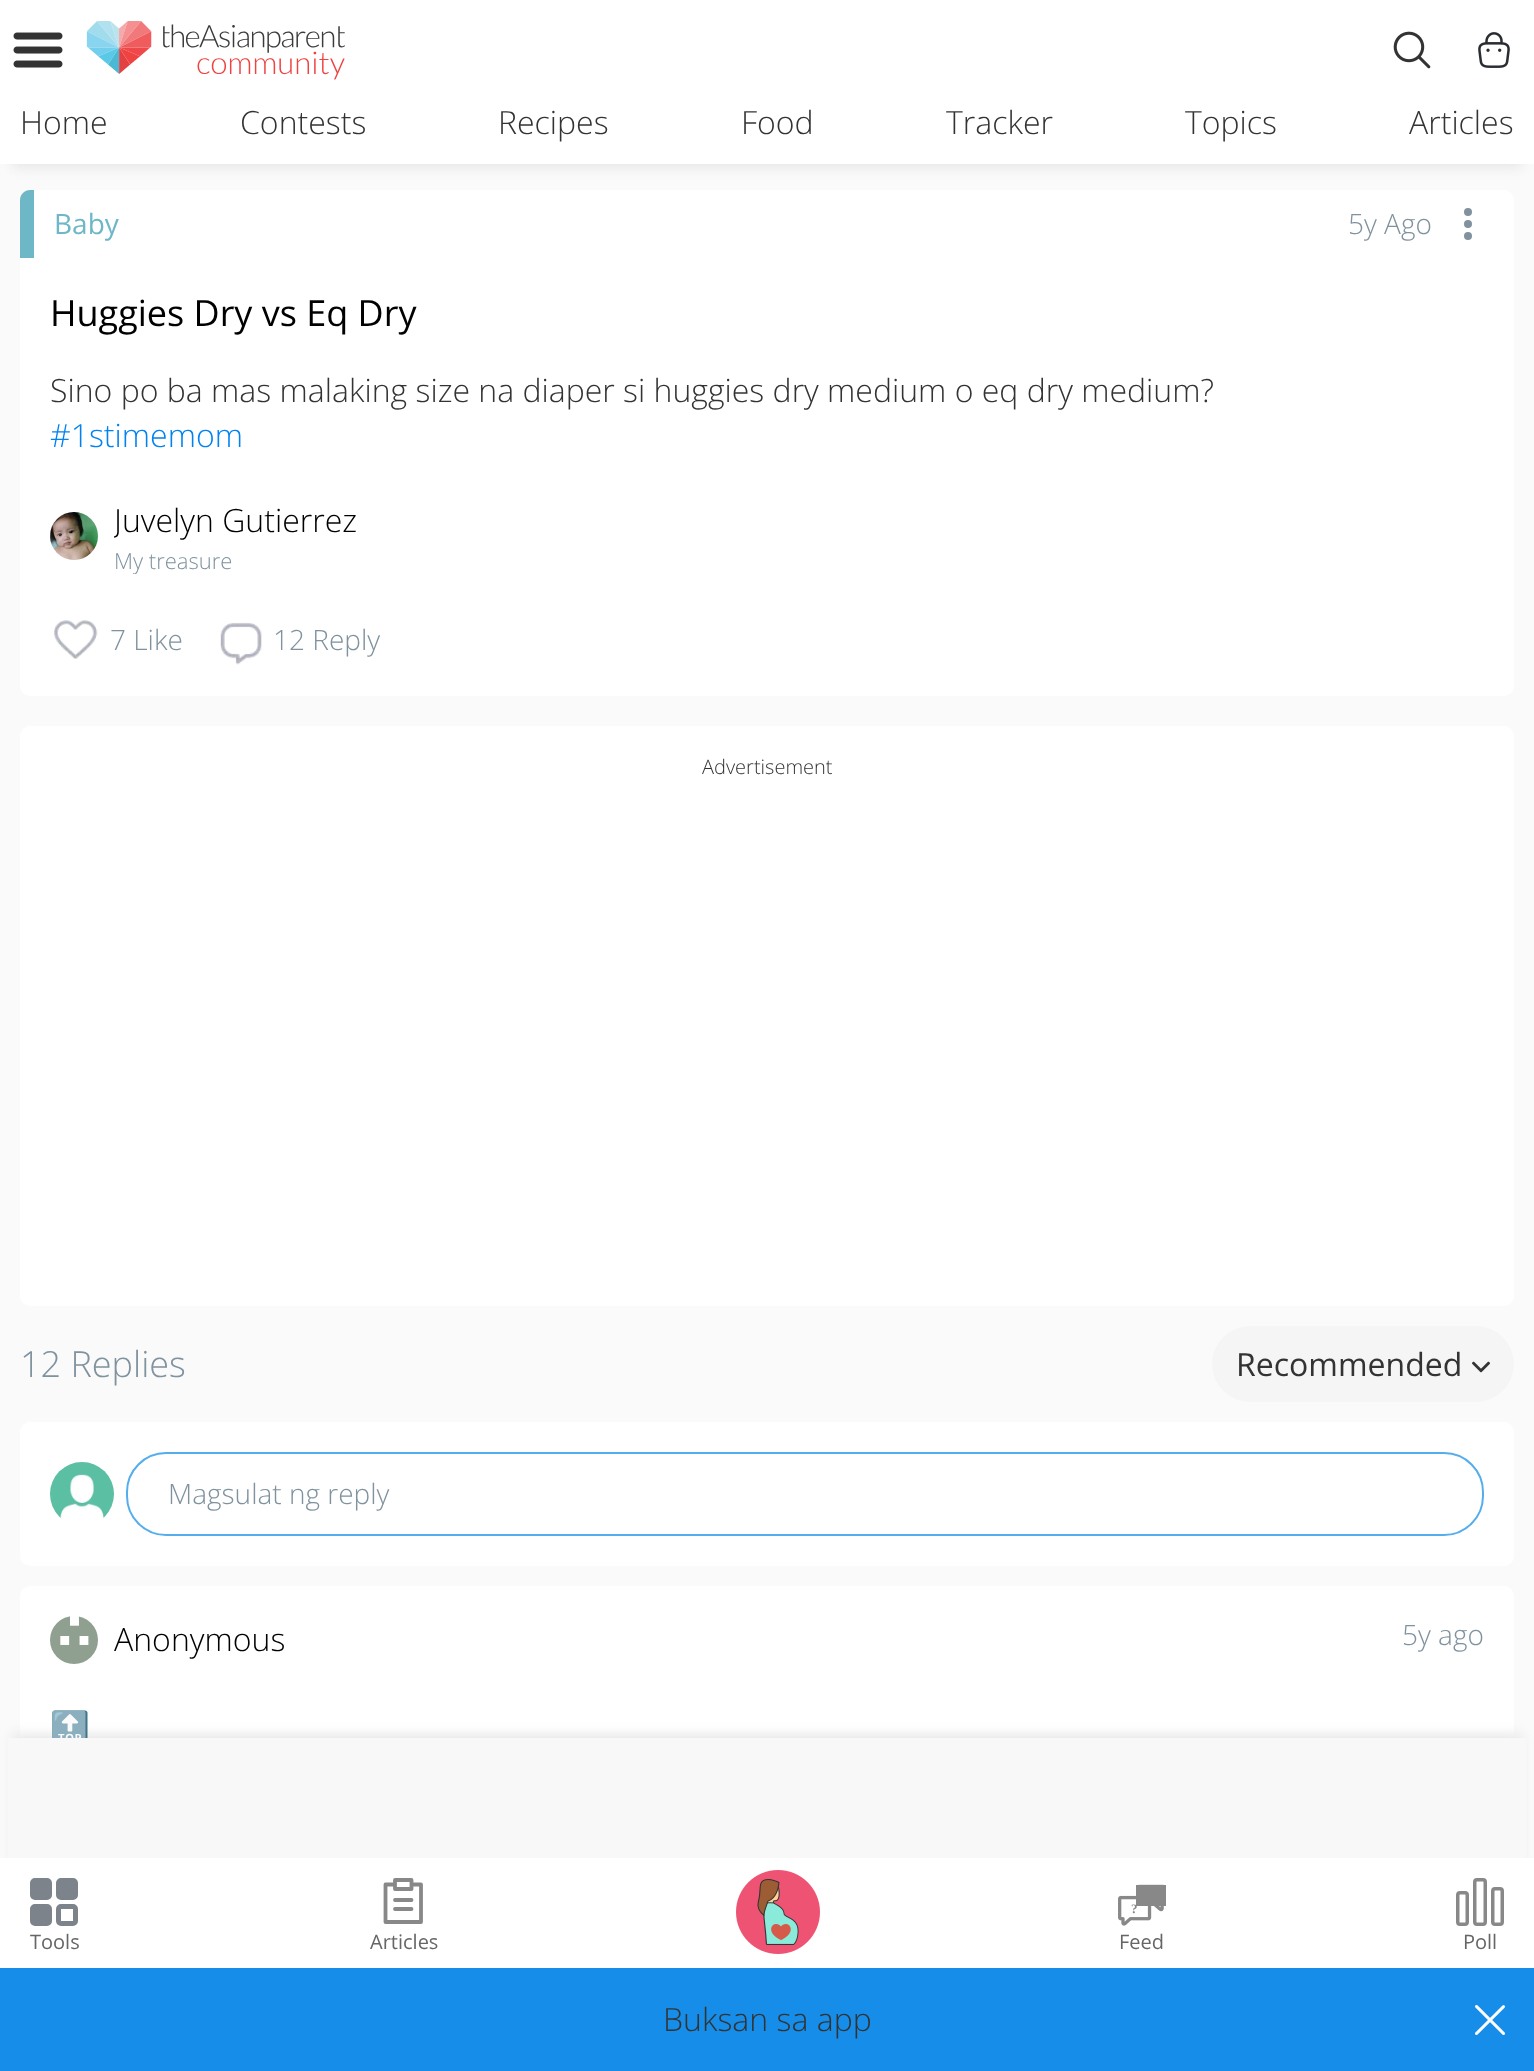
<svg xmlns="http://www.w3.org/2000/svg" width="1534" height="2071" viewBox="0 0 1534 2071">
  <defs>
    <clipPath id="clip1"><path d="M114 498h362v76H114z"/></clipPath>
    <clipPath id="clip2"><path d="M114 544h118v30H114z"/></clipPath>
  </defs>
  <rect width="100%" height="100%" fill="#fafafa"/>
  <path d="M12 28h1510v140H12z" fill="#e7e7e7" filter="blur(6px)"/>
  <path d="M0 0h1534v164H0z" fill="#fff"/>
  <image x="13" y="32" width="50" height="36" href="img/1.png"/>
  <image x="86" y="21" width="259" height="59" href="img/2.png"/>
  <image x="1393" y="31" width="38" height="38" href="img/3.png"/>
  <image x="1478" y="32" width="32" height="36" href="img/4.png"/>
  <rect x="20" y="190" width="1494" height="506" rx="10" fill="#fff"/>
  <path d="M30 190H34V258H20V200C20 194.5 24.5 190 30 190Z" fill="#6eb7c7"/>
  <circle cx="1468" cy="212" r="4" fill="#7f929e"/>
  <circle cx="1468" cy="224" r="4" fill="#7f929e"/>
  <circle cx="1468" cy="236" r="4" fill="#7f929e"/>
  <image x="50" y="512" width="48" height="48" href="img/5.png"/>
  <image x="54" y="620" width="44" height="39" href="img/6.png"/>
  <image x="220" y="622" width="42" height="43" href="img/7.png"/>
  <rect x="20" y="726" width="1494" height="580" rx="10" fill="#fff"/>
  <rect x="1212" y="1326" width="302" height="76" rx="38" fill="#f5f5f5"/>
  <image x="1472" y="1361" width="18" height="12" href="img/8.png"/>
  <rect x="20" y="1422" width="1494" height="144" rx="10" fill="#fff"/>
  <image x="50" y="1462" width="64" height="57" href="img/9.png"/>
  <rect x="127" y="1453" width="1356" height="82" rx="39" fill="none" stroke="#54aded" stroke-width="2"/>
  <rect x="20" y="1586" width="1494" height="286" rx="10" fill="#fff"/>
  <image x="50" y="1616" width="48" height="48" href="img/10.png"/>
  <path d="M12 1734h1510v310H12z" fill="#e7e7e7" filter="blur(6px)"/>
  <path d="M0 1858h1534v110H0z" fill="#fff"/>
  <rect x="32.5" y="1880.5" width="17" height="17" rx="2.5" fill="#7c838b" stroke="#7c838b" stroke-width="5"/>
  <rect x="58.5" y="1880.5" width="17" height="17" rx="2.5" fill="#7c838b" stroke="#7c838b" stroke-width="5"/>
  <rect x="32.5" y="1906.5" width="17" height="17" rx="2.5" fill="#7c838b" stroke="#7c838b" stroke-width="5"/>
  <rect x="58.5" y="1906.5" width="17" height="17" rx="2.5" fill="none" stroke="#7c838b" stroke-width="5"/>
  <path d="M394.5 1884.5H385.5V1922H421V1884.5H412M395 1900H411.5M395 1909H411.5M395 1880V1889H411.5V1880Z" fill="none" stroke="#888" stroke-width="3.8" stroke-linecap="round" stroke-linejoin="round"/>
  <image x="736" y="1870" width="84" height="84" href="img/11.png"/>
  <image x="1118" y="1884" width="48" height="42" href="img/12.png"/>
  <rect x="1457.75" y="1892.75" width="9.5" height="31.5" rx="2.25" fill="none" stroke="#888" stroke-width="3.5"/>
  <rect x="1474.75" y="1879.75" width="10.5" height="44.5" rx="2.25" fill="none" stroke="#888" stroke-width="3.5"/>
  <rect x="1492.75" y="1888.75" width="9.5" height="35.5" rx="2.25" fill="none" stroke="#888" stroke-width="3.5"/>
  <path d="M0 1968h1534v103H0z" fill="#168de9"/>
  <image x="1475" y="2005" width="30" height="30" href="img/13.png"/>
  <g font-family="Open Sans" font-size="32" font-weight="300" fill="#333">
    <text x="20" y="134">Home</text>
    <text x="240" y="134">Contests</text>
    <text x="498" y="134">Recipes</text>
    <text x="741" y="134">Food</text>
    <text x="946" y="134">Tracker</text>
    <text x="1185" y="134">Topics</text>
    <text x="1409" y="134">Articles</text>
  </g>
  <text x="54" y="234" font-family="Open Sans" font-size="28" fill="#6eb7c7">Baby</text>
  <text x="1348" y="234" font-family="Open Sans" font-size="28" font-weight="300" fill="#7f929e">5y Ago</text>
  <text x="50" y="326" font-family="Open Sans" font-size="36" fill="#000">Huggies Dry vs Eq Dry</text>
  <text x="50" y="402" font-family="Open Sans" font-size="32" font-weight="300" fill="#333">Sino po ba mas malaking size na diaper si huggies dry medium o eq dry medium?</text>
  <text x="50" y="447" font-family="Open Sans" font-size="32" font-weight="300" fill="#0082f1">#1stimemom</text>
  <g clip-path="url(#clip1)">
    <text x="114" y="532" font-family="Open Sans" font-size="32" font-weight="300" fill="#000">Juvelyn Gutierrez</text>
  </g>
  <g clip-path="url(#clip2)">
    <text x="114" y="569" font-family="Open Sans" font-size="22" font-weight="300" fill="#7f929e">My treasure</text>
  </g>
  <g font-family="Open Sans" font-size="28" font-weight="300" fill="#7f929e">
    <text x="110" y="650">7 Like</text>
    <text x="273" y="650">12 Reply</text>
  </g>
  <text x="702" y="774" font-family="Open Sans" font-size="20" font-weight="300" fill="#333">Advertisement</text>
  <text x="20" y="1377" font-family="Open Sans" font-size="36" font-weight="300" fill="#7f929e">12 Replies</text>
  <text x="1236" y="1376" font-family="Open Sans" font-size="32" fill="#333">Recommended</text>
  <text x="168" y="1504" font-family="Open Sans" font-size="28" font-weight="300" fill="#7f929e">Magsulat ng reply</text>
  <text x="114" y="1651" font-family="Open Sans" font-size="32" font-weight="300" fill="#000">Anonymous</text>
  <text x="1402" y="1645" font-family="Open Sans" font-size="28" font-weight="300" fill="#7f929e">5y ago</text>
  <text x="50" y="1739" font-family="Noto Color Emoji" font-size="32" fill="#333">🔝</text>
  <path d="M8 1738h1518v120H8z" fill="#f8f8f8"/>
  <g font-family="Open Sans" font-size="20" fill="#666">
    <text x="30" y="1949">Tools</text>
    <text x="370" y="1949">Articles</text>
  </g>
  <text x="1131" y="1913" font-family="Liberation Serif" font-size="13" font-weight="bold" fill="#888">?</text>
  <g font-family="Open Sans" font-size="20" fill="#666">
    <text x="1119" y="1949">Feed</text>
    <text x="1463" y="1949">Poll</text>
  </g>
  <text x="663" y="2031" font-family="Open Sans" font-size="32" font-weight="300" fill="#333">Buksan sa app</text>
</svg>
